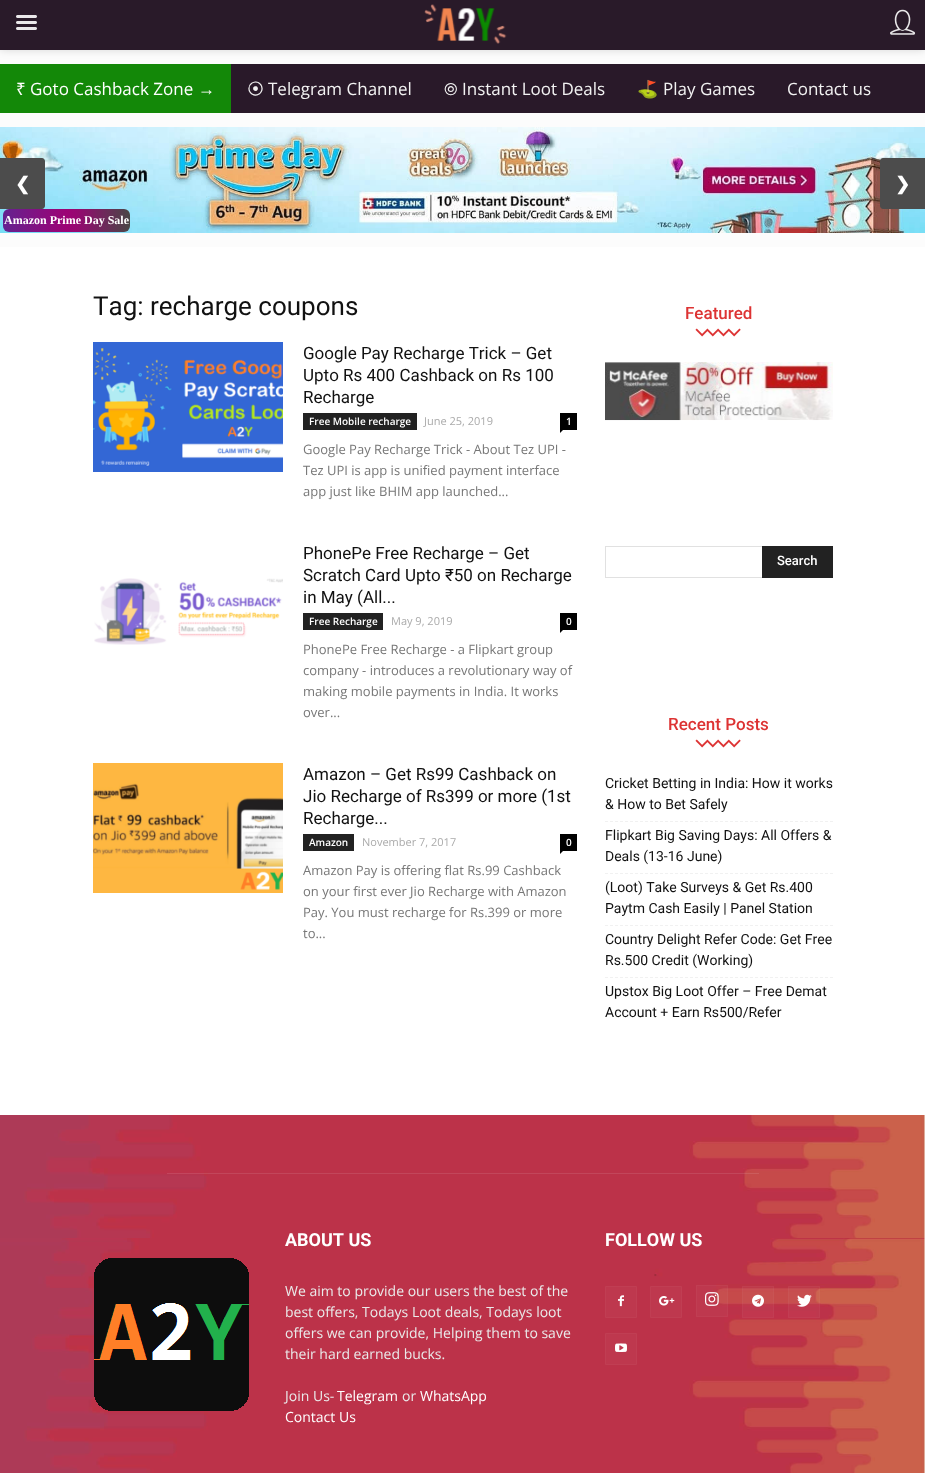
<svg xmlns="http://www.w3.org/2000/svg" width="925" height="1473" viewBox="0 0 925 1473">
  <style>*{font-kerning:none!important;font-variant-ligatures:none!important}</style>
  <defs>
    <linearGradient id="g1" gradientUnits="userSpaceOnUse" x1="3" y1="221" x2="130" y2="221"><stop offset="0" stop-color="#642290"/><stop offset="0.5" stop-color="#9d0275"/><stop offset="0.58" stop-color="#960871"/><stop offset="1" stop-color="#494746"/></linearGradient>
  </defs>
  <rect width="100%" height="100%" fill="#fff"/>
  <path d="M0 50h925v197H0z" fill="#fcfcfc"/>
  <path d="M0 0h925v50H0z" fill="#00000026" filter="blur(4px)"/>
  <path d="M0 0h925v50H0z" fill="#291a29"/>
  <image x="16" y="15" width="21" height="15" href="img/1.png"/>
  <image x="424" y="4" width="83" height="40" href="img/2.png"/>
  <image x="890" y="9" width="26" height="26" href="img/3.png"/>
  <path d="M231 64h694v49H231z" fill="#291929"/>
  <path d="M0 64h231v49H0z" fill="#138808"/>
  <image x="0" y="127" width="925" height="106" href="img/4.png"/>
  <path d="M0 158H42C43.5 158 45 159.5 45 161V206C45 207.5 43.5 209 42 209H0Z" fill="#4c4c4c"/>
  <path d="M883 158H925V209H883C881.5 209 880 207.5 880 206V161C880 159.5 881.5 158 883 158Z" fill="#4c4c4c"/>
  <rect x="3" y="209" width="127" height="23" rx="6" fill="url(#g1)"/>
  <image x="93" y="342" width="190" height="130" href="img/5.png"/>
  <path d="M303 413h114v17H303z" fill="#222"/>
  <path d="M560 413h17v17H560z" fill="#000"/>
  <path d="M560 430H563L560 433Z" fill="#000"/>
  <image x="94" y="578" width="189" height="67" href="img/6.png"/>
  <path d="M303 613h80v17H303z" fill="#222"/>
  <path d="M560 613h17v17H560z" fill="#000"/>
  <path d="M560 630H563L560 633Z" fill="#000"/>
  <image x="93" y="763" width="190" height="130" href="img/7.png"/>
  <path d="M303 834h51v17H303z" fill="#222"/>
  <path d="M560 834h17v17H560z" fill="#000"/>
  <path d="M560 851H563L560 854Z" fill="#000"/>
  <image x="695" y="328" width="46" height="9" href="img/8.png"/>
  <image x="605" y="362" width="228" height="59" href="img/9.png"/>
  <path d="M605 546h157v1H605z" fill="#e1e1e1"/>
  <path d="M605 577h157v1H605z" fill="#e1e1e1"/>
  <path d="M605 546h1v32H605z" fill="#e1e1e1"/>
  <path d="M762 546h71v32H762z" fill="#222"/>
  <image x="695" y="739" width="46" height="9" href="img/8.png"/>
  <path d="M605 821.5H833" fill="none" stroke="#f1f1f1" stroke-dasharray="3 2"/>
  <path d="M605 873.5H833" fill="none" stroke="#f1f1f1" stroke-dasharray="3 2"/>
  <path d="M605 925.5H833" fill="none" stroke="#f1f1f1" stroke-dasharray="3 2"/>
  <path d="M605 977.5H833" fill="none" stroke="#f1f1f1" stroke-dasharray="3 2"/>
  <image x="0" y="1115" width="925" height="358" href="img/10.png"/>
  <path d="M167 1173h592v1H167z" fill="#ffffff1a"/>
  <path d="M606 1287h30v30H606z" fill="#be384e"/>
  <image x="618" y="1295" width="6" height="12" href="img/11.png"/>
  <path d="M605.5 1286.5h31v31H605.5z" fill="none" stroke="#c03e53"/>
  <path d="M651 1287h30v30H651z" fill="#be384e"/>
  <image x="659" y="1296" width="16" height="10" href="img/12.png"/>
  <path d="M650.5 1286.5h31v31H650.5z" fill="none" stroke="#c03e53"/>
  <path d="M696 1285h32v32H696z" fill="#ffffff08"/>
  <image x="705" y="1292" width="14" height="14" href="img/13.png"/>
  <path d="M696.5 1285.5h31v31H696.5z" fill="none" stroke="#ffffff08"/>
  <path d="M742 1286h32v32H742z" fill="#ffffff08"/>
  <image x="752" y="1294" width="12" height="13" href="img/14.png"/>
  <path d="M742.5 1286.5h31v31H742.5z" fill="none" stroke="#ffffff08"/>
  <path d="M788 1286h32v32H788z" fill="#ffffff08"/>
  <image x="797" y="1294" width="15" height="13" href="img/15.png"/>
  <path d="M788.5 1286.5h31v31H788.5z" fill="none" stroke="#ffffff08"/>
  <path d="M606 1334h30v30H606z" fill="#be384e"/>
  <image x="615" y="1343" width="12" height="9" href="img/16.png"/>
  <path d="M605.5 1333.5h31v31H605.5z" fill="none" stroke="#c03e53"/>
  <image x="94" y="1258" width="155" height="153" href="img/17.png"/>
  <text x="16" y="95" font-family="Noto Sans" font-size="17" fill="#fff">₹</text>
  <text x="30" y="95" font-family="Open Sans" font-size="17" fill="#fff">Goto Cashback Zone</text>
  <text x="198" y="95" font-family="Liberation Sans" font-size="17" fill="#fff">→</text>
  <text x="247" y="95" font-family="IPAGothic" font-size="17" fill="#f2f2f2">⦿</text>
  <text x="268" y="95" font-family="Open Sans" font-size="17" fill="#f2f2f2">Telegram Channel</text>
  <text x="444" y="95" font-family="FreeSans" font-size="17" fill="#f2f2f2">⦾</text>
  <text x="462" y="95" font-family="Open Sans" font-size="17" fill="#f2f2f2">Instant Loot Deals</text>
  <text x="637" y="95" font-family="Noto Color Emoji" font-size="17" fill="#f2f2f2">⛳</text>
  <g font-family="Open Sans" font-size="17" fill="#f2f2f2">
    <text x="663" y="95">Play Games</text>
    <text x="787" y="95">Contact us</text>
  </g>
  <g font-family="DejaVu Sans" font-size="18" font-weight="bold" fill="#fff">
    <text x="15" y="190">❮</text>
    <text x="895" y="190">❯</text>
  </g>
  <text x="4" y="224" font-family="Liberation Serif" font-size="12" font-weight="bold" fill="#fff">Amazon Prime Day Sale</text>
  <text x="93" y="315" font-family="Roboto" font-size="26" fill="#111">Tag: recharge coupons</text>
  <g font-family="Roboto" font-size="17" fill="#111">
    <text x="303" y="359">Google Pay Recharge Trick – Get</text>
    <text x="303" y="381">Upto Rs 400 Cashback on Rs 100</text>
    <text x="303" y="403">Recharge</text>
  </g>
  <text x="309" y="425" font-family="Open Sans" font-size="10" font-weight="600" fill="#fff">Free Mobile recharge</text>
  <text x="424" y="425" font-family="Open Sans" font-size="11" fill="#aaa">June 25, 2019</text>
  <text x="566" y="425" font-family="Open Sans" font-size="10" font-weight="600" fill="#fff">1</text>
  <g font-family="Open Sans" font-size="13" fill="#777">
    <text x="303" y="454">Google Pay Recharge Trick - About Tez UPI -</text>
    <text x="303" y="475">Tez UPI is app is unified payment interface</text>
    <text x="303" y="496">app just like BHIM app launched...</text>
  </g>
  <g font-family="Roboto" font-size="17" fill="#111">
    <text x="303" y="559">PhonePe Free Recharge – Get</text>
    <text x="303" y="581">Scratch Card Upto ₹50 on Recharge</text>
    <text x="303" y="603">in May (All...</text>
  </g>
  <text x="309" y="625" font-family="Open Sans" font-size="10" font-weight="600" fill="#fff">Free Recharge</text>
  <text x="391" y="625" font-family="Open Sans" font-size="11" fill="#aaa">May 9, 2019</text>
  <text x="566" y="625" font-family="Open Sans" font-size="10" font-weight="600" fill="#fff">0</text>
  <g font-family="Open Sans" font-size="13" fill="#777">
    <text x="303" y="654">PhonePe Free Recharge - a Flipkart group</text>
    <text x="303" y="675">company - introduces a revolutionary way of</text>
    <text x="303" y="696">making mobile payments in India. It works</text>
    <text x="303" y="717">over...</text>
  </g>
  <g font-family="Roboto" font-size="17" fill="#111">
    <text x="303" y="780">Amazon – Get Rs99 Cashback on</text>
    <text x="303" y="802">Jio Recharge of Rs399 or more (1st</text>
    <text x="303" y="824">Recharge...</text>
  </g>
  <text x="309" y="846" font-family="Open Sans" font-size="10" font-weight="600" fill="#fff">Amazon</text>
  <text x="362" y="846" font-family="Open Sans" font-size="11" fill="#aaa">November 7, 2017</text>
  <text x="566" y="846" font-family="Open Sans" font-size="10" font-weight="600" fill="#fff">0</text>
  <g font-family="Open Sans" font-size="13" fill="#777">
    <text x="303" y="875">Amazon Pay is offering flat Rs.99 Cashback</text>
    <text x="303" y="896">on your first ever Jio Recharge with Amazon</text>
    <text x="303" y="917">Pay. You must recharge for Rs.399 or more</text>
    <text x="303" y="938">to...</text>
  </g>
  <text x="685" y="319" font-family="Roboto" font-size="17" font-weight="500" fill="#d33">Featured</text>
  <text x="777" y="565" font-family="Roboto" font-size="13" font-weight="500" fill="#fff">Search</text>
  <text x="668" y="730" font-family="Roboto" font-size="17" font-weight="500" fill="#d33">Recent Posts</text>
  <g font-family="Roboto" font-size="14" fill="#111">
    <text x="605" y="788">Cricket Betting in India: How it works</text>
    <text x="605" y="809">&amp; How to Bet Safely</text>
    <text x="605" y="840">Flipkart Big Saving Days: All Offers &amp;</text>
    <text x="605" y="861">Deals (13-16 June)</text>
    <text x="605" y="892">(Loot) Take Surveys &amp; Get Rs.400</text>
    <text x="605" y="913">Paytm Cash Easily | Panel Station</text>
    <text x="605" y="944">Country Delight Refer Code: Get Free</text>
    <text x="605" y="965">Rs.500 Credit (Working)</text>
    <text x="605" y="996">Upstox Big Loot Offer – Free Demat</text>
    <text x="605" y="1017">Account + Earn Rs500/Refer</text>
  </g>
  <text x="285" y="1246" font-family="Roboto" font-size="18" font-weight="bold" fill="#fff">ABOUT US</text>
  <g font-family="Open Sans" font-size="14" fill="#eaeaea">
    <text x="285" y="1296">We aim to provide our users the best of the</text>
    <text x="285" y="1317">best offers, Todays Loot deals, Todays loot</text>
    <text x="285" y="1338">offers we can provide, Helping them to save</text>
    <text x="285" y="1359">their hard earned bucks.</text>
    <text x="285" y="1401">Join Us-</text>
  </g>
  <text x="337" y="1401" font-family="Open Sans" font-size="14" fill="#fff">Telegram</text>
  <text x="402" y="1401" font-family="Open Sans" font-size="14" fill="#eaeaea">or</text>
  <g font-family="Open Sans" font-size="14" fill="#fff">
    <text x="420" y="1401">WhatsApp</text>
    <text x="285" y="1422">Contact Us</text>
  </g>
  <text x="605" y="1246" font-family="Roboto" font-size="18" font-weight="bold" fill="#fff">FOLLOW US</text>
</svg>
